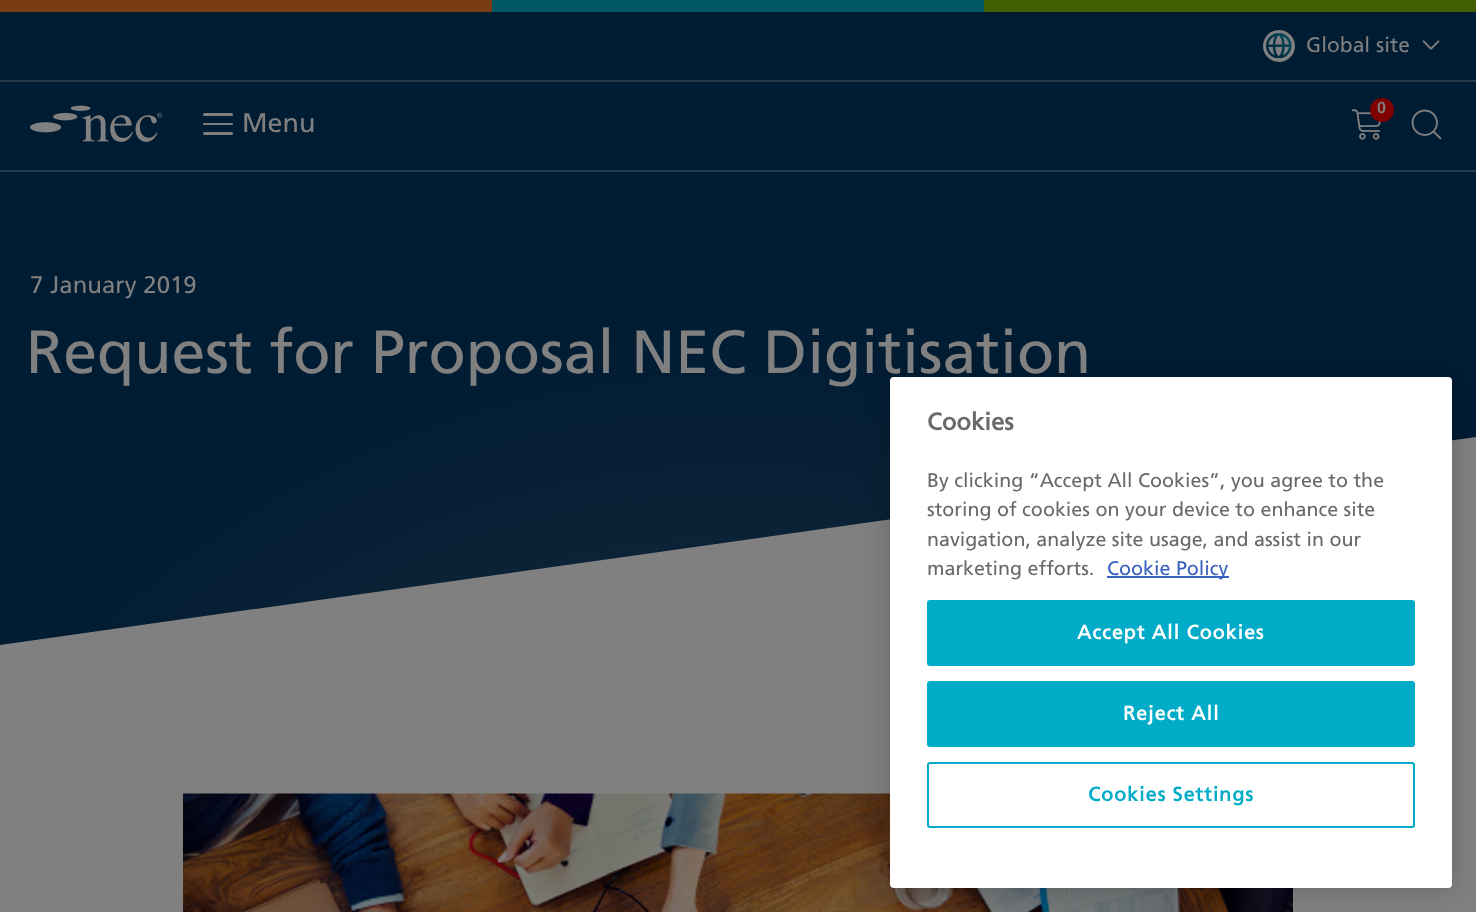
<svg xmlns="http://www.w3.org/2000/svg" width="1476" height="912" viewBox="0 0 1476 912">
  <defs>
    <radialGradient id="g1" gradientUnits="userSpaceOnUse" cx="0" cy="0" r="1" gradientTransform="matrix(1412 0 0 1399 738 1289)"><stop offset="0" stop-color="#2f3e51"/><stop offset="0.5" stop-color="#0e2337"/><stop offset="0.7" stop-color="#001c33"/></radialGradient>
  </defs>
  <rect width="100%" height="100%" fill="#001c33"/>
  <path d="M0 205L1476-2V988L0 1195Z" fill="url(#g1)"/>
  <path d="M0 0h492v12H0z" fill="#783d13"/>
  <path d="M492 0h492v12H492z" fill="#005664"/>
  <path d="M984 0h492v12H984z" fill="#415f00"/>
  <circle cx="1279" cy="46" r="14.5" fill="#808080" stroke="#808080" stroke-width="3"/>
  <image x="1266" y="33" width="26" height="25" href="img/1.png"/>
  <image x="1422" y="40" width="18" height="10" href="img/2.png"/>
  <path d="M0 80h1476v2H0z" fill="#273a4a"/>
  <image x="30" y="105" width="132" height="37" href="img/3.png"/>
  <rect x="203" y="123" width="30" height="2" rx="1" fill="#808080"/>
  <rect x="203" y="113" width="30" height="3" rx="1.5" fill="#808080"/>
  <rect x="203" y="132" width="30" height="3" rx="1.5" fill="#808080"/>
  <image x="1351" y="109" width="30" height="31" href="img/4.png"/>
  <circle cx="1382" cy="110" r="12" fill="#800000"/>
  <image x="1411" y="109" width="31" height="31" href="img/5.png"/>
  <path d="M0 170h1476v2H0z" fill="#273a4a"/>
  <path d="M0 645V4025L1476 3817V437L942 512Z" fill="#808080"/>
  <image x="183" y="793" width="1110" height="119" href="img/6.png"/>
  <rect x="890" y="377" width="562" height="511" rx="4" fill="#00000033" filter="blur(13.5px)"/>
  <text x="1306" y="52" font-family="'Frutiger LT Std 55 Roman'" font-size="21" fill="#808080">Global site</text>
  <text x="242" y="132" font-family="'Frutiger LT Std 55 Roman'" font-size="27" fill="#808080">Menu</text>
  <text x="1377" y="113" font-family="Frutiger" font-size="16" font-weight="bold" fill="#808080">0</text>
  <text x="30" y="293" font-family="'Frutiger LT Std 55 Roman'" font-size="24" fill="#808080">7 January 2019</text>
  <text x="26" y="373" font-family="'Frutiger LT Std 55 Roman'" font-size="60.9" fill="#808080">Request for Proposal NEC Digitisation</text>
  <rect x="890" y="377" width="562" height="511" rx="4" fill="#fff"/>
  <text x="927" y="430" font-family="'Frutiger LT Std 55 Roman'" font-size="24" font-weight="bold" fill="#696969">Cookies</text>
  <g font-family="'Frutiger LT Std 55 Roman'" font-size="19.7" fill="#696969">
    <text x="927" y="487">By clicking “Accept All Cookies”, you agree to the</text>
    <text x="927" y="516">storing of cookies on your device to enhance site</text>
    <text x="927" y="546">navigation, analyze site usage, and assist in our</text>
    <text x="927" y="575">marketing efforts.</text>
  </g>
  <path d="M1107 576h122v2H1107z" fill="#3860be"/>
  <text x="1107" y="575" font-family="'Frutiger LT Std 55 Roman'" font-size="19.7" fill="#3860be">Cookie Policy</text>
  <rect x="928" y="601" width="486" height="64" rx="2" fill="#00acc7" stroke="#00acc7" stroke-width="2"/>
  <text x="1077" y="639" font-family="'Frutiger LT Std 55 Roman'" font-size="19.7" font-weight="bold" letter-spacing="1" fill="#fff">Accept All Cookies</text>
  <rect x="928" y="682" width="486" height="64" rx="2" fill="#00acc7" stroke="#00acc7" stroke-width="2"/>
  <text x="1123" y="720" font-family="'Frutiger LT Std 55 Roman'" font-size="19.7" font-weight="bold" letter-spacing="1" fill="#fff">Reject All</text>
  <rect x="928" y="763" width="486" height="64" rx="2" fill="none" stroke="#00acc7" stroke-width="2"/>
  <text x="1088" y="801" font-family="'Frutiger LT Std 55 Roman'" font-size="19.7" font-weight="bold" letter-spacing="1" fill="#00acc7">Cookies Settings</text>
</svg>
